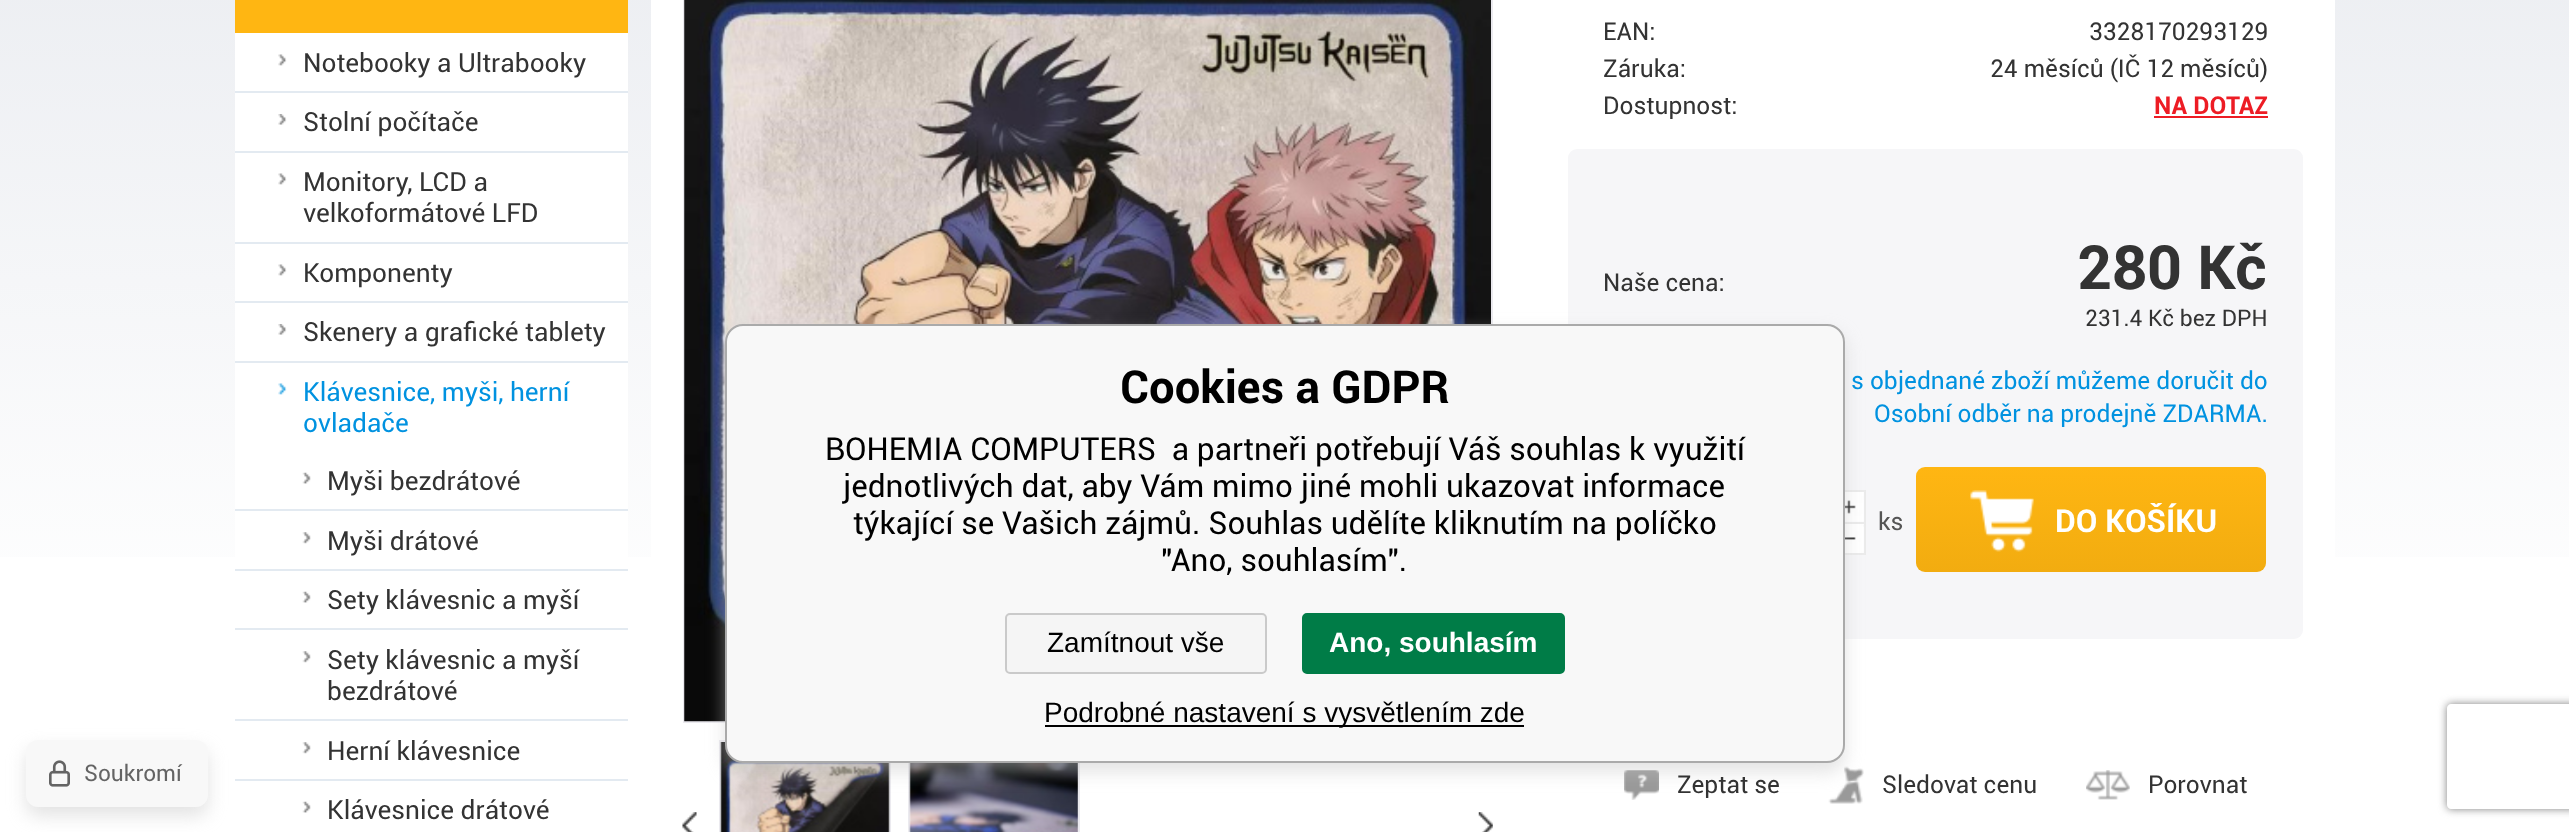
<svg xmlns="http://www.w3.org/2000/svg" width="2569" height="832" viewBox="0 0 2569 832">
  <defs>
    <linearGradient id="g1" gradientUnits="userSpaceOnUse" x1="1284" y1="-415" x2="1285" y2="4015"><stop offset="0" stop-color="#e2e5eb"/><stop offset="0.24" stop-color="#fff"/><stop offset="1" stop-color="#fff"/></linearGradient>
    <linearGradient id="g2" gradientUnits="userSpaceOnUse" x1="2091" y1="467" x2="2091" y2="572"><stop offset="0" stop-color="#ffb612"/><stop offset="1" stop-color="#f2ac10"/></linearGradient>
    <clipPath id="clip1"><path d="M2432 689H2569V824H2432ZM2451 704H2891C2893 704 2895 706 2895 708V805C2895 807 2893 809 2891 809H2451C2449 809 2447 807 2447 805V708C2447 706 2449 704 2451 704Z" clip-rule="evenodd"/></clipPath>
  </defs>
  <rect width="100%" height="100%" fill="#fff"/>
  <path d="M0 0h2569v557H0z" fill="url(#g1)"/>
  <path d="M235 0h393v33H235z" fill="#ffb612"/>
  <path d="M235 33h393v524H235z" fill="#fff"/>
  <image x="278" y="54" width="9" height="12" href="img/1.png"/>
  <path d="M235 91h393v2H235z" fill="#e3eaf1"/>
  <image x="278" y="114" width="9" height="11" href="img/2.png"/>
  <path d="M235 151h393v2H235z" fill="#e3eaf1"/>
  <image x="278" y="173" width="9" height="12" href="img/1.png"/>
  <path d="M235 242h393v2H235z" fill="#e3eaf1"/>
  <image x="278" y="264" width="9" height="12" href="img/1.png"/>
  <path d="M235 301h393v2H235z" fill="#e3eaf1"/>
  <image x="278" y="324" width="9" height="11" href="img/2.png"/>
  <path d="M235 361h393v2H235z" fill="#e3eaf1"/>
  <image x="278" y="383" width="9" height="12" href="img/3.png"/>
  <image x="302" y="472" width="9" height="12" href="img/4.png"/>
  <path d="M235 509h393v2H235z" fill="#e3eaf1"/>
  <image x="302" y="532" width="9" height="12" href="img/5.png"/>
  <path d="M235 569h393v2H235z" fill="#e3eaf1"/>
  <image x="302" y="591" width="9" height="12" href="img/4.png"/>
  <path d="M235 628h393v2H235z" fill="#e3eaf1"/>
  <image x="302" y="651" width="9" height="12" href="img/5.png"/>
  <path d="M235 719h393v2H235z" fill="#e3eaf1"/>
  <image x="302" y="742" width="9" height="12" href="img/5.png"/>
  <path d="M235 779h393v2H235z" fill="#e3eaf1"/>
  <image x="302" y="801" width="9" height="12" href="img/4.png"/>
  <path d="M651 0h1684v557H651z" fill="#fff"/>
  <path d="M684 -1h808v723H684z" fill="none" stroke="#ebeaef" stroke-width="2"/>
  <image x="684" y="0" width="807" height="722" href="img/6.png"/>
  <image x="682" y="812" width="15" height="20" href="img/7.png"/>
  <path d="M720 741h170v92H720z" fill="none" stroke="#ebeaef" stroke-width="2"/>
  <image x="720" y="742" width="170" height="90" href="img/8.png"/>
  <path d="M909 741h170v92H909z" fill="none" stroke="#ebeaef" stroke-width="2"/>
  <image x="909" y="763" width="169" height="69" href="img/9.png"/>
  <image x="1478" y="812" width="15" height="20" href="img/10.png"/>
  <path d="M2154 116h114v2H2154z" fill="#ed1c24"/>
  <rect x="1568" y="149" width="735" height="490" rx="9" fill="#f6f6f8"/>
  <image x="1845" y="492" width="19" height="30" href="img/11.png"/>
  <path d="M1833 491h32v35H1833z" fill="none" stroke="#ebebeb" stroke-width="2"/>
  <image x="1845" y="524" width="19" height="29" href="img/12.png"/>
  <path d="M1833 523h32v31H1833z" fill="none" stroke="#ebebeb" stroke-width="2"/>
  <rect x="1916" y="467" width="350" height="105" rx="9" fill="url(#g2)"/>
  <image x="1970" y="490" width="64" height="62" href="img/13.png"/>
  <image x="1624" y="770" width="35" height="30" href="img/14.png"/>
  <image x="1828" y="766" width="36" height="38" href="img/15.png"/>
  <image x="2086" y="770" width="44" height="30" href="img/16.png"/>
  <rect x="725" y="333" width="1120" height="439" rx="18" fill="#c8c8c880" filter="blur(9px)"/>
  <rect x="726" y="325" width="1118" height="437" rx="17" fill="#f8f8f8" stroke="#aaa" stroke-width="2"/>
  <rect x="1006" y="614" width="260" height="59" rx="4" fill="#f5f5f5" stroke="#cacaca" stroke-width="2"/>
  <rect x="1303" y="614" width="261" height="59" rx="4" fill="#007c47" stroke="#007c47" stroke-width="2"/>
  <path d="M1045 725h479v2H1045z" fill="#000"/>
  <rect x="26" y="749" width="182" height="67" rx="12" fill="#c8c8c880" filter="blur(9px)"/>
  <rect x="26" y="740" width="182" height="67" rx="12" fill="#f8f8f8"/>
  <image x="49" y="760" width="21" height="27" href="img/17.png"/>
  <g clip-path="url(#clip1)">
    <rect x="2447" y="704" width="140" height="105" rx="4" fill="#808080" filter="blur(4.5px)"/>
  </g>
  <g font-family="Roboto" font-size="26.25" fill="#333">
    <text x="303" y="72">Notebooky a Ultrabooky</text>
    <text x="303" y="131">Stolní počítače</text>
    <text x="303" y="191">Monitory, LCD a</text>
    <text x="303" y="222">velkoformátové LFD</text>
    <text x="303" y="282">Komponenty</text>
    <text x="303" y="341">Skenery a grafické tablety</text>
  </g>
  <g font-family="Roboto" font-size="26.25" fill="#0092e0">
    <text x="303" y="401">Klávesnice, myši, herní</text>
    <text x="303" y="432">ovladače</text>
  </g>
  <g font-family="Roboto" font-size="26.25" fill="#333">
    <text x="327" y="490">Myši bezdrátové</text>
    <text x="327" y="550">Myši drátové</text>
    <text x="327" y="609">Sety klávesnic a myší</text>
    <text x="327" y="669">Sety klávesnic a myší</text>
    <text x="327" y="700">bezdrátové</text>
    <text x="327" y="760">Herní klávesnice</text>
    <text x="327" y="819">Klávesnice drátové</text>
  </g>
  <g font-family="Roboto" font-size="24.5" fill="#333">
    <text x="1603" y="40">EAN:</text>
    <text x="2089" y="40">3328170293129</text>
    <text x="1603" y="77">Záruka:</text>
    <text x="1990" y="77">24 měsíců (IČ 12 měsíců)</text>
    <text x="1603" y="114">Dostupnost:</text>
  </g>
  <text x="2154" y="114" font-family="Roboto" font-size="24.5" font-weight="bold" fill="#ed1c24">NA DOTAZ</text>
  <text x="1603" y="291" font-family="Roboto" font-size="24.5" fill="#333">Naše cena:</text>
  <text x="2077" y="289" font-family="Roboto" font-size="61" font-weight="bold" fill="#333">280 Kč</text>
  <text x="2085" y="326" font-family="Roboto" font-size="22.75" fill="#333">231.4 Kč bez DPH</text>
  <g font-family="Roboto" font-size="24.5" fill="#0092e0">
    <text x="1851" y="389">s objednané zboží můžeme doručit do</text>
    <text x="1874" y="422">Osobní odběr na prodejně ZDARMA.</text>
  </g>
  <text x="1878" y="530" font-family="Roboto" font-size="24.5" fill="#555">ks</text>
  <text x="2055" y="532" font-family="Roboto" font-size="31.5" font-weight="bold" fill="#fff">DO KOŠÍKU</text>
  <g font-family="Roboto" font-size="24.5" fill="#333">
    <text x="1677" y="793">Zeptat se</text>
    <text x="1882" y="793">Sledovat cenu</text>
    <text x="2148" y="793">Porovnat</text>
  </g>
  <text x="1120" y="403" font-family="Roboto" font-size="45.5" font-weight="bold" fill="#000">Cookies a GDPR</text>
  <g font-family="Roboto" font-size="31.5" fill="#000">
    <text x="825" y="460" xml:space="preserve">BOHEMIA COMPUTERS  a partneři potřebují Váš souhlas k využití</text>
    <text x="843" y="497">jednotlivých dat, aby Vám mimo jiné mohli ukazovat informace</text>
    <text x="853" y="534">týkající se Vašich zájmů. Souhlas udělíte kliknutím na políčko</text>
    <text x="1161" y="571">"Ano, souhlasím".</text>
  </g>
  <text x="1047" y="652" font-family="Liberation Sans" font-size="28" fill="#000">Zamítnout vše</text>
  <text x="1329" y="652" font-family="Liberation Sans" font-size="28" font-weight="bold" fill="#fff">Ano, souhlasím</text>
  <text x="1044" y="722" font-family="Liberation Sans" font-size="28" fill="#000">Podrobné nastavení s vysvětlením zde</text>
  <text x="84" y="781" font-family="Roboto" font-size="22.75" fill="#646464">Soukromí</text>
</svg>
